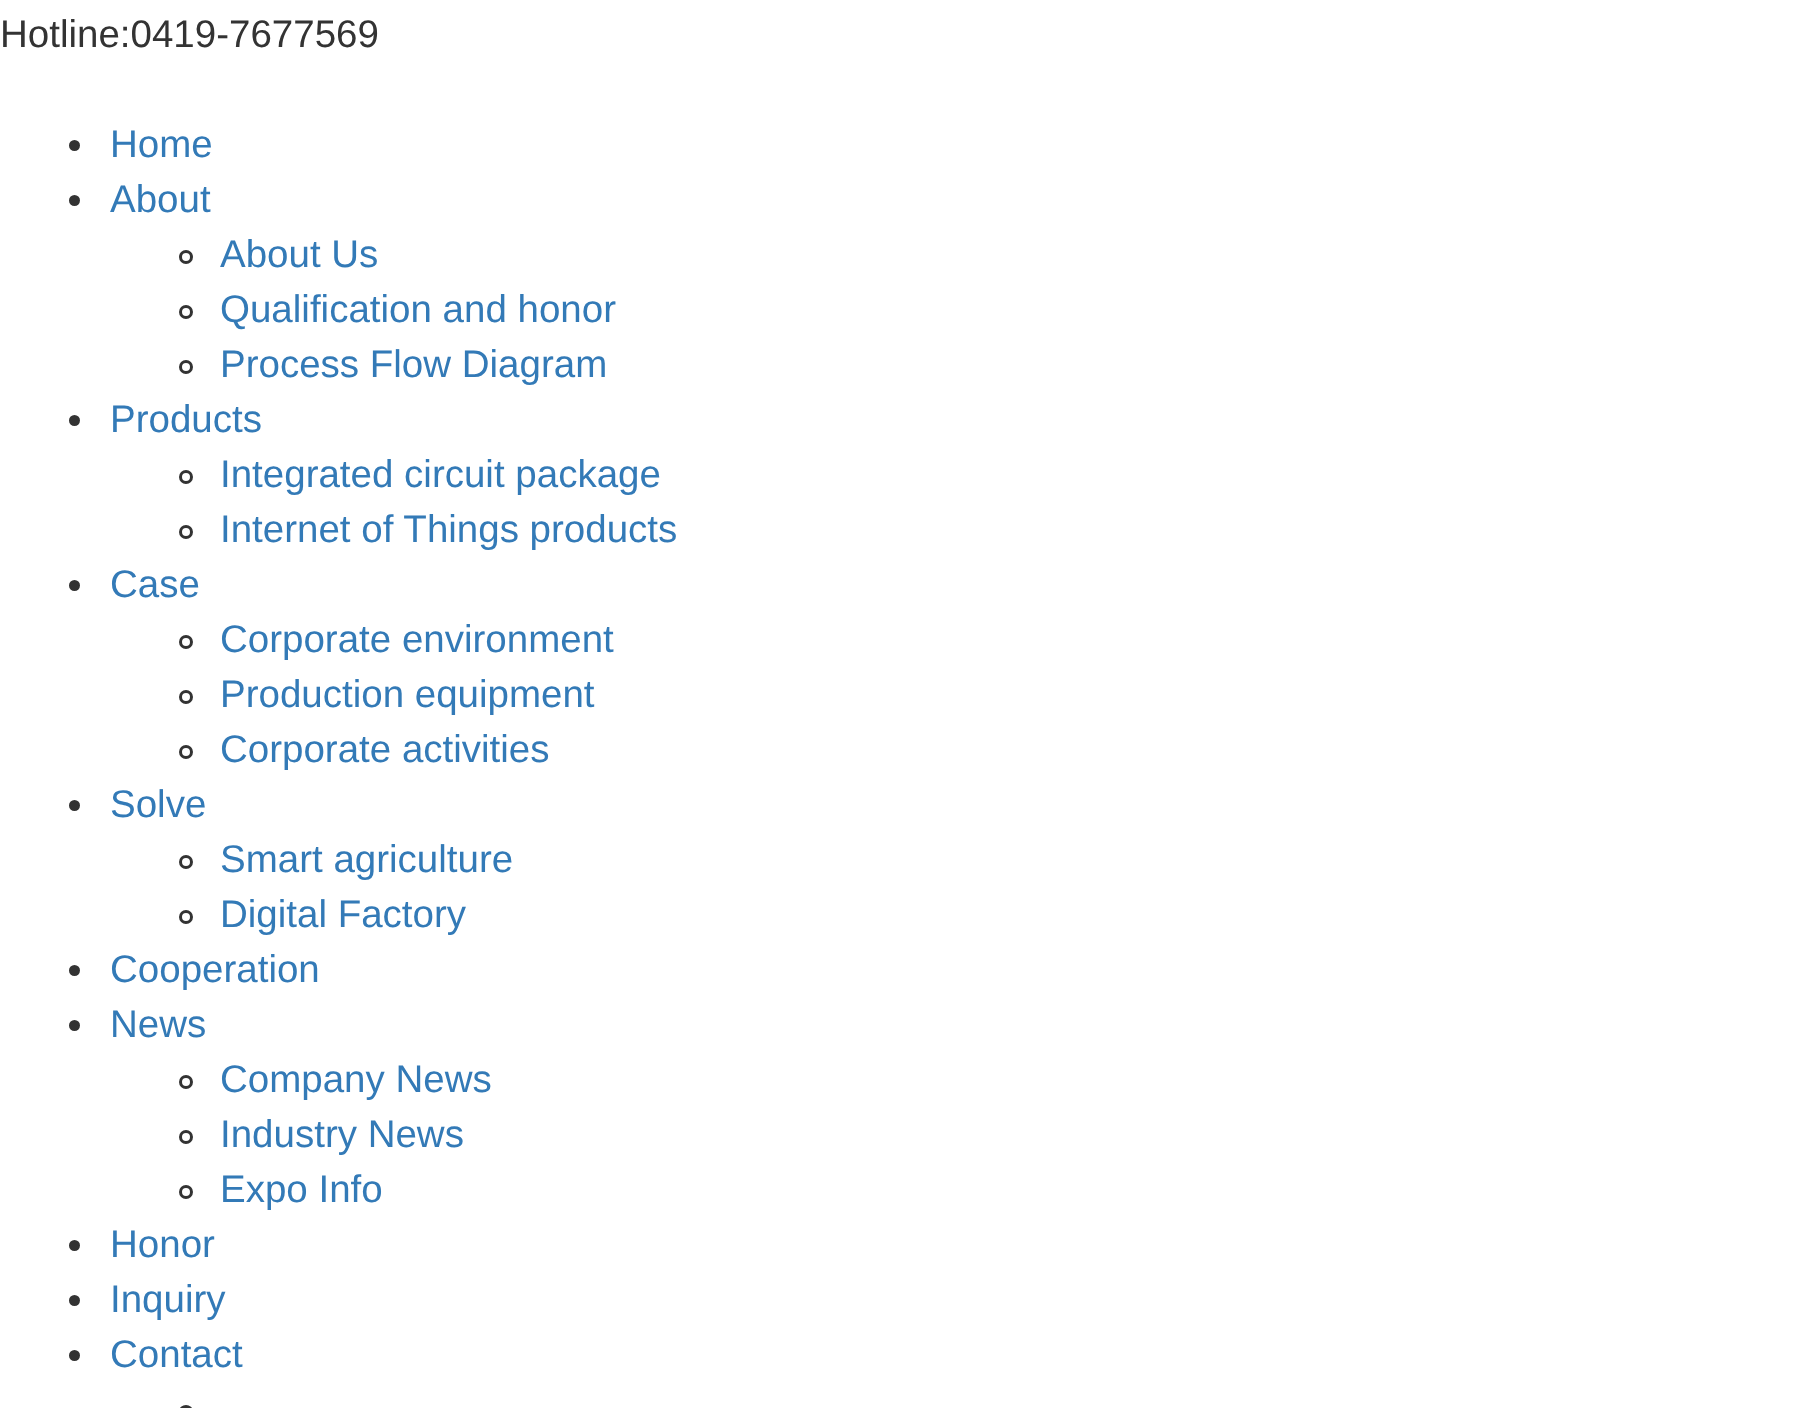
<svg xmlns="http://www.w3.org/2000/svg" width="1810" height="1408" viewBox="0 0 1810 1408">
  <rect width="100%" height="100%" fill="#fff"/>
  <circle cx="74.5" cy="145.5" r="5.5" fill="#333"/>
  <circle cx="74.5" cy="200.5" r="5.5" fill="#333"/>
  <circle cx="186" cy="257" r="5.5" fill="none" stroke="#333" stroke-width="3"/>
  <circle cx="186" cy="312" r="5.5" fill="none" stroke="#333" stroke-width="3"/>
  <circle cx="186" cy="367" r="5.5" fill="none" stroke="#333" stroke-width="3"/>
  <circle cx="74.5" cy="420.5" r="5.5" fill="#333"/>
  <circle cx="186" cy="477" r="5.5" fill="none" stroke="#333" stroke-width="3"/>
  <circle cx="186" cy="532" r="5.5" fill="none" stroke="#333" stroke-width="3"/>
  <circle cx="74.5" cy="585.5" r="5.5" fill="#333"/>
  <circle cx="186" cy="642" r="5.5" fill="none" stroke="#333" stroke-width="3"/>
  <circle cx="186" cy="697" r="5.5" fill="none" stroke="#333" stroke-width="3"/>
  <circle cx="186" cy="752" r="5.5" fill="none" stroke="#333" stroke-width="3"/>
  <circle cx="74.5" cy="805.5" r="5.5" fill="#333"/>
  <circle cx="186" cy="862" r="5.5" fill="none" stroke="#333" stroke-width="3"/>
  <circle cx="186" cy="917" r="5.5" fill="none" stroke="#333" stroke-width="3"/>
  <circle cx="74.5" cy="970.5" r="5.5" fill="#333"/>
  <circle cx="74.5" cy="1025.5" r="5.5" fill="#333"/>
  <circle cx="186" cy="1082" r="5.5" fill="none" stroke="#333" stroke-width="3"/>
  <circle cx="186" cy="1137" r="5.5" fill="none" stroke="#333" stroke-width="3"/>
  <circle cx="186" cy="1192" r="5.5" fill="none" stroke="#333" stroke-width="3"/>
  <circle cx="74.5" cy="1245.5" r="5.5" fill="#333"/>
  <circle cx="74.5" cy="1300.5" r="5.5" fill="#333"/>
  <circle cx="74.5" cy="1355.5" r="5.5" fill="#333"/>
  <rect x="180.5" y="1406.5" width="11" height="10" rx="5.5" fill="none" stroke="#333" stroke-width="3"/>
  <text x="0" y="47" font-family="Liberation Sans" font-size="38.5" fill="#333">Hotline:0419-7677569</text>
  <g font-family="Liberation Sans" font-size="38.5" fill="#337ab7">
    <text x="110" y="157">Home</text>
    <text x="110" y="212">About</text>
    <text x="220" y="267">About Us</text>
    <text x="220" y="322">Qualification and honor</text>
    <text x="220" y="377">Process Flow Diagram</text>
    <text x="110" y="432">Products</text>
    <text x="220" y="487">Integrated circuit package</text>
    <text x="220" y="542">Internet of Things products</text>
    <text x="110" y="597">Case</text>
    <text x="220" y="652">Corporate environment</text>
    <text x="220" y="707">Production equipment</text>
    <text x="220" y="762">Corporate activities</text>
    <text x="110" y="817">Solve</text>
    <text x="220" y="872">Smart agriculture</text>
    <text x="220" y="927">Digital Factory</text>
    <text x="110" y="982">Cooperation</text>
    <text x="110" y="1037">News</text>
    <text x="220" y="1092">Company News</text>
    <text x="220" y="1147">Industry News</text>
    <text x="220" y="1202">Expo Info</text>
    <text x="110" y="1257">Honor</text>
    <text x="110" y="1312">Inquiry</text>
    <text x="110" y="1367">Contact</text>
  </g>
</svg>
